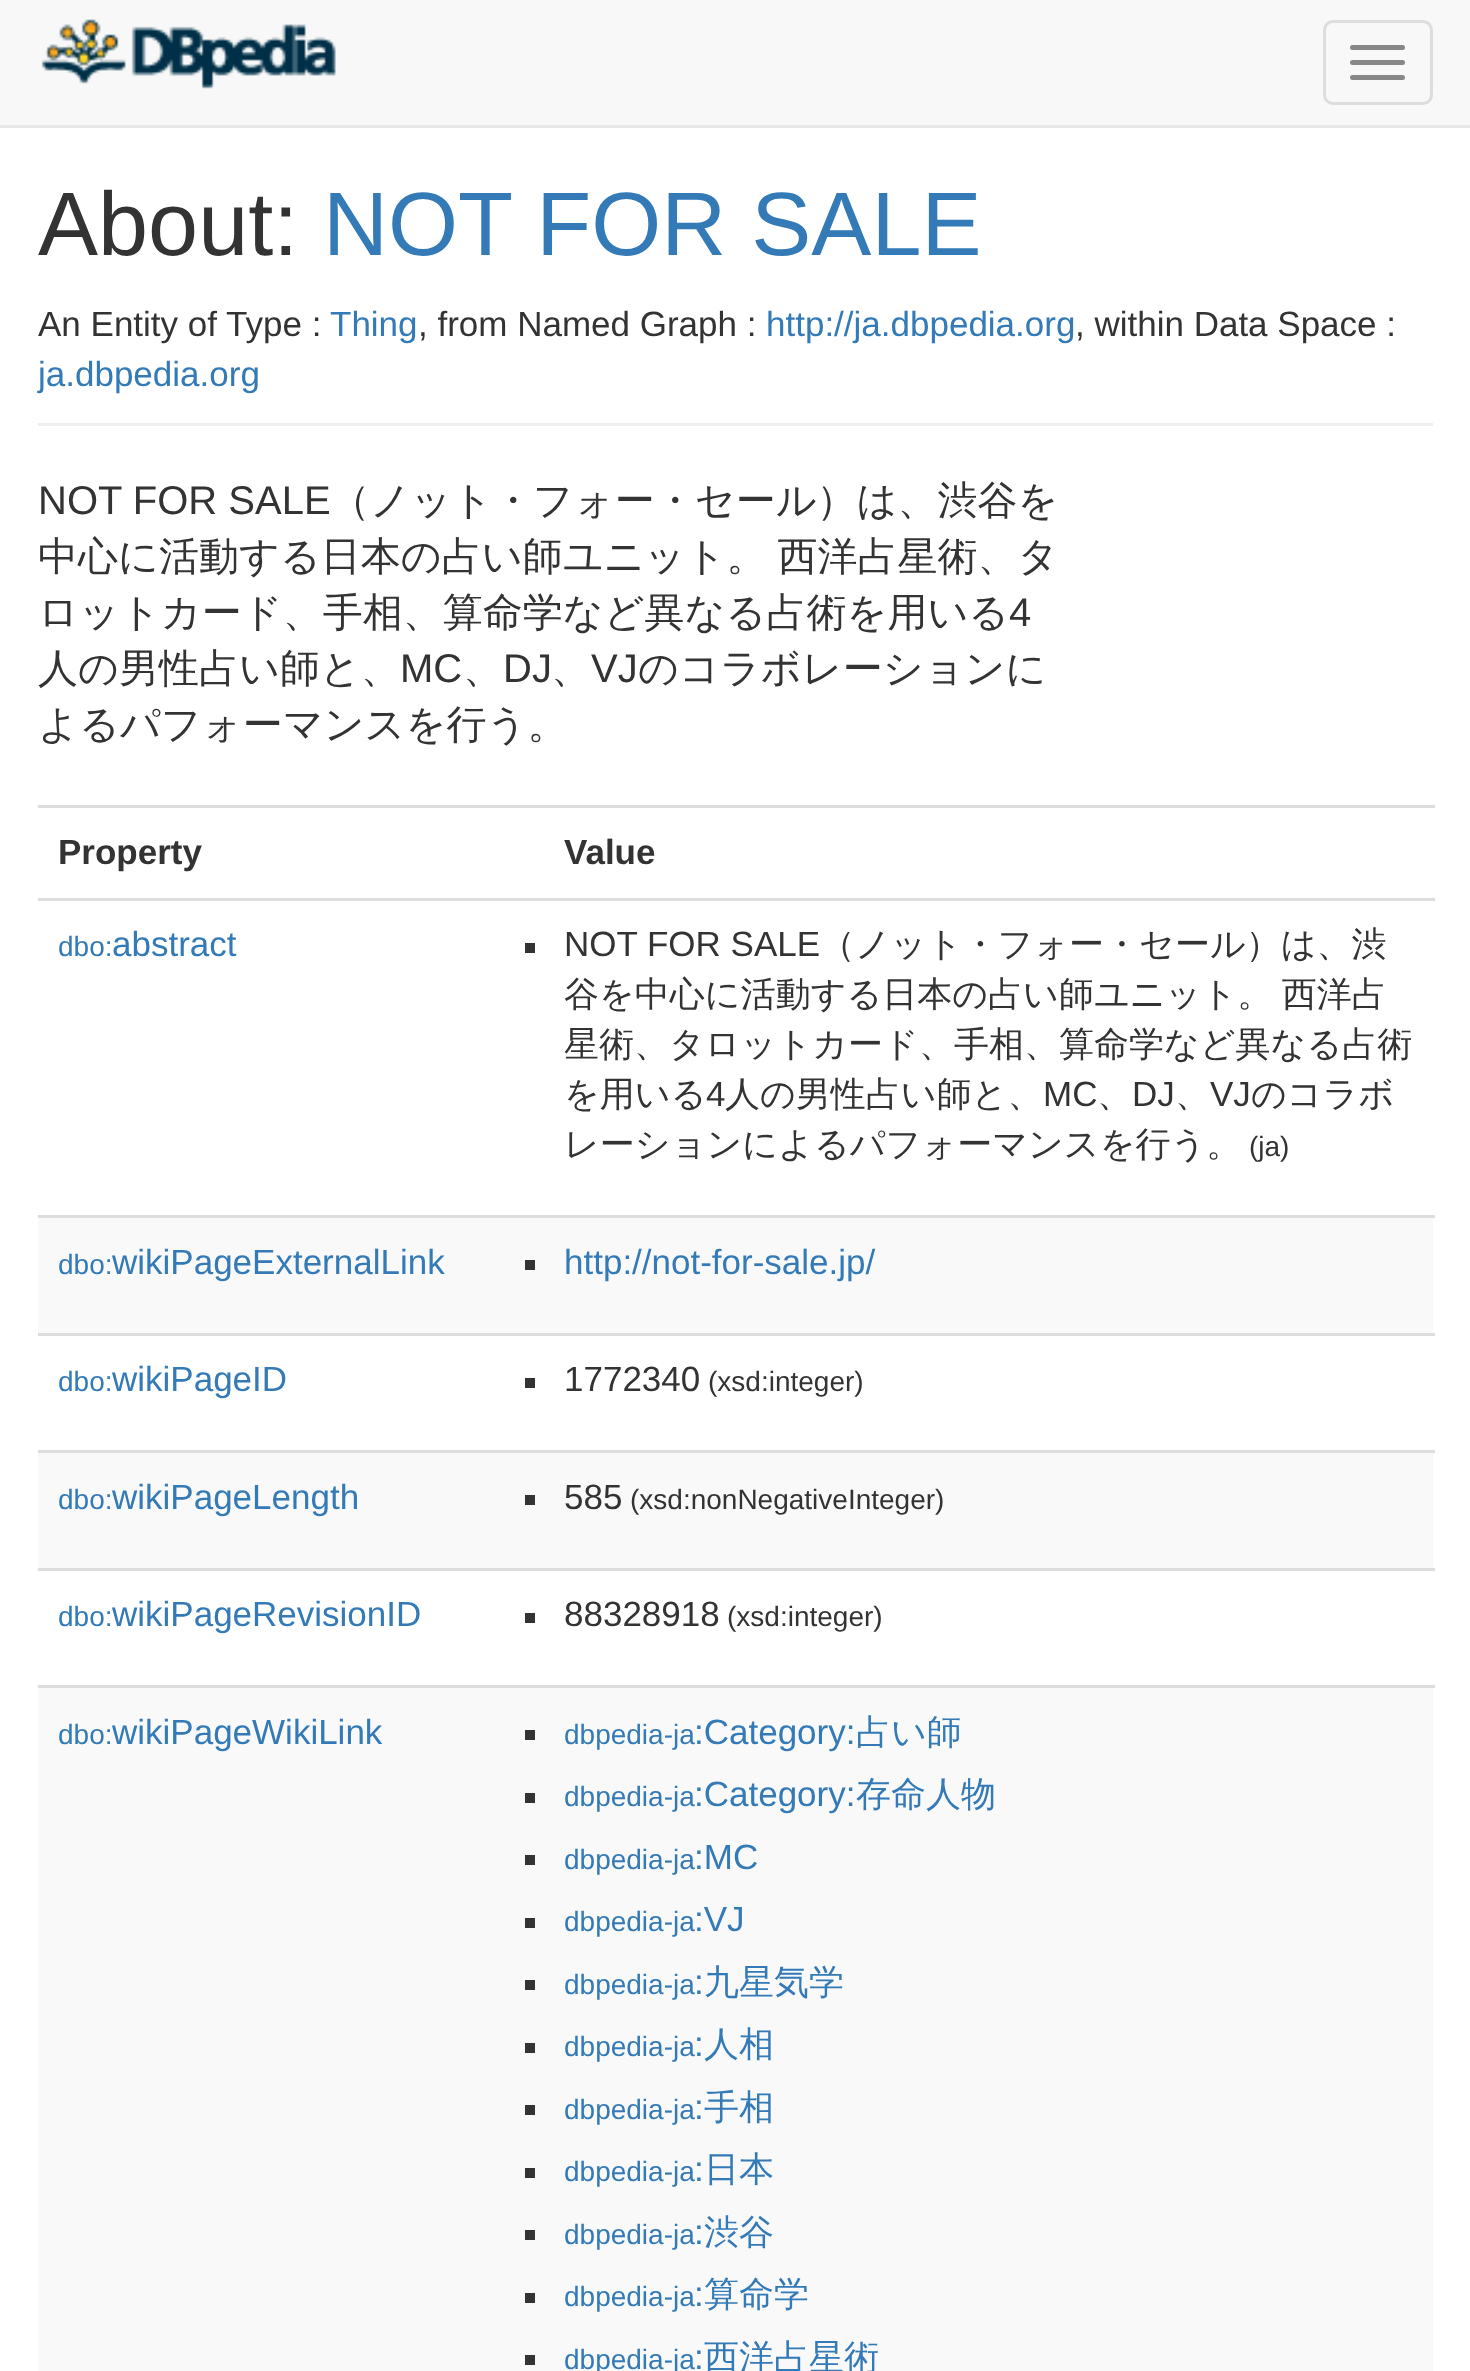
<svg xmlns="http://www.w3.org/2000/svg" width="1470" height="2371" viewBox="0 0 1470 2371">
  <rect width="100%" height="100%" fill="#fff"/>
  <path d="M0 0h1470v125H0z" fill="#f8f8f8"/>
  <path d="M0 125h1470v3H0z" fill="#e7e7e7"/>
  <image x="41" y="19" width="295" height="70" href="img/1.png"/>
  <rect x="1324.5" y="21.5" width="107" height="82" rx="8.5" fill="none" stroke="#ddd" stroke-width="3"/>
  <rect x="1350" y="45" width="55" height="5" rx="2.5" fill="#888"/>
  <rect x="1350" y="60" width="55" height="5" rx="2.5" fill="#888"/>
  <rect x="1350" y="75" width="55" height="5" rx="2.5" fill="#888"/>
  <path d="M38 423h1395v3H38z" fill="#eee"/>
  <path d="M38 805h1397v3H38z" fill="#ddd"/>
  <path d="M38 898h1397v3H38z" fill="#ddd"/>
  <path d="M525 943h10v10H525z" fill="#333"/>
  <path d="M38 1218h1395v115H38z" fill="#f9f9f9"/>
  <path d="M38 1215h1397v3H38z" fill="#ddd"/>
  <path d="M525 1260h10v10H525z" fill="#333"/>
  <path d="M38 1333h1397v3H38z" fill="#ddd"/>
  <path d="M525 1378h10v10H525z" fill="#333"/>
  <path d="M38 1453h1395v115H38z" fill="#f9f9f9"/>
  <path d="M38 1450h1397v3H38z" fill="#ddd"/>
  <path d="M525 1495h10v10H525z" fill="#333"/>
  <path d="M38 1568h1397v3H38z" fill="#ddd"/>
  <path d="M525 1613h10v10H525z" fill="#333"/>
  <path d="M38 1688h1395v683H38z" fill="#f9f9f9"/>
  <path d="M38 1685h1397v3H38z" fill="#ddd"/>
  <path d="M525 1730h10v10H525z" fill="#333"/>
  <path d="M525 1793h10v10H525z" fill="#333"/>
  <path d="M525 1855h10v10H525z" fill="#333"/>
  <path d="M525 1918h10v10H525z" fill="#333"/>
  <path d="M525 1980h10v10H525z" fill="#333"/>
  <path d="M525 2043h10v10H525z" fill="#333"/>
  <path d="M525 2105h10v10H525z" fill="#333"/>
  <path d="M525 2168h10v10H525z" fill="#333"/>
  <path d="M525 2230h10v10H525z" fill="#333"/>
  <path d="M525 2293h10v10H525z" fill="#333"/>
  <path d="M525 2355h10v10H525z" fill="#333"/>
  <text x="38" y="255" font-family="Liberation Sans" font-size="90" fill="#333">About:</text>
  <text x="323" y="255" font-family="Liberation Sans" font-size="90" fill="#337ab7">NOT FOR SALE</text>
  <text x="38" y="336" font-family="Liberation Sans" font-size="35" fill="#333">An Entity of Type :</text>
  <text x="330" y="336" font-family="Liberation Sans" font-size="35" fill="#337ab7">Thing</text>
  <text x="418" y="336" font-family="Liberation Sans" font-size="35" fill="#333">, from Named Graph :</text>
  <text x="766" y="336" font-family="Liberation Sans" font-size="35" fill="#337ab7">http://ja.dbpedia.org</text>
  <text x="1075" y="336" font-family="Liberation Sans" font-size="35" fill="#333">, within Data Space :</text>
  <text x="38" y="386" font-family="Liberation Sans" font-size="35" fill="#337ab7">ja.dbpedia.org</text>
  <text x="38" y="514" font-family="Liberation Sans" font-size="40" fill="#333">NOT FOR SALE</text>
  <g font-family="WenQuanYi Zen Hei" font-size="40" font-weight="500" fill="#333">
    <text x="330" y="514">（ノット・フォー・セール）は、渋谷を</text>
    <text x="38" y="570" word-spacing="-1">中心に活動する日本の占い師ユニット。 西洋占星術、タ</text>
    <text x="38" y="626">ロットカード、手相、算命学など異なる占術を用いる</text>
  </g>
  <text x="1009" y="626" font-family="Liberation Sans" font-size="40" fill="#333">4</text>
  <text x="38" y="682" font-family="WenQuanYi Zen Hei" font-size="40" font-weight="500" fill="#333">人の男性占い師と、</text>
  <text x="400" y="682" font-family="Liberation Sans" font-size="40" fill="#333">MC</text>
  <text x="463" y="682" font-family="WenQuanYi Zen Hei" font-size="40" font-weight="500" fill="#333">、</text>
  <text x="503" y="682" font-family="Liberation Sans" font-size="40" fill="#333">DJ</text>
  <text x="551" y="682" font-family="WenQuanYi Zen Hei" font-size="40" font-weight="500" fill="#333">、</text>
  <text x="591" y="682" font-family="Liberation Sans" font-size="40" fill="#333">VJ</text>
  <g font-family="WenQuanYi Zen Hei" font-size="40" font-weight="500" fill="#333">
    <text x="638" y="682">のコラボレーションに</text>
    <text x="38" y="738">よるパフォーマンスを行う。</text>
  </g>
  <g font-family="Liberation Sans" font-size="35" font-weight="bold" fill="#333">
    <text x="58" y="864">Property</text>
    <text x="564" y="864">Value</text>
  </g>
  <text x="58" y="956" font-family="Liberation Sans" font-size="28" fill="#337ab7">dbo:</text>
  <text x="112" y="956" font-family="Liberation Sans" font-size="35" fill="#337ab7">abstract</text>
  <text x="564" y="956" font-family="Liberation Sans" font-size="35" fill="#333">NOT FOR SALE</text>
  <g font-family="WenQuanYi Zen Hei" font-size="35" font-weight="500" fill="#333">
    <text x="820" y="956">（ノット・フォー・セール）は、渋</text>
    <text x="564" y="1006" word-spacing="-1">谷を中心に活動する日本の占い師ユニット。 西洋占</text>
    <text x="564" y="1056">星術、タロットカード、手相、算命学など異なる占術</text>
    <text x="564" y="1106">を用いる</text>
  </g>
  <text x="706" y="1106" font-family="Liberation Sans" font-size="35" fill="#333">4</text>
  <text x="725" y="1106" font-family="WenQuanYi Zen Hei" font-size="35" font-weight="500" fill="#333">人の男性占い師と、</text>
  <text x="1043" y="1106" font-family="Liberation Sans" font-size="35" fill="#333">MC</text>
  <text x="1097" y="1106" font-family="WenQuanYi Zen Hei" font-size="35" font-weight="500" fill="#333">、</text>
  <text x="1132" y="1106" font-family="Liberation Sans" font-size="35" fill="#333">DJ</text>
  <text x="1175" y="1106" font-family="WenQuanYi Zen Hei" font-size="35" font-weight="500" fill="#333">、</text>
  <text x="1210" y="1106" font-family="Liberation Sans" font-size="35" fill="#333">VJ</text>
  <g font-family="WenQuanYi Zen Hei" font-size="35" font-weight="500" fill="#333">
    <text x="1251" y="1106">のコラボ</text>
    <text x="564" y="1156">レーションによるパフォーマンスを行う。</text>
  </g>
  <text x="1249" y="1156" font-family="Liberation Sans" font-size="28" fill="#333">(ja)</text>
  <text x="58" y="1274" font-family="Liberation Sans" font-size="28" fill="#337ab7">dbo:</text>
  <g font-family="Liberation Sans" font-size="35" fill="#337ab7">
    <text x="112" y="1274">wikiPageExternalLink</text>
    <text x="564" y="1274">http://not-for-sale.jp/</text>
  </g>
  <text x="58" y="1391" font-family="Liberation Sans" font-size="28" fill="#337ab7">dbo:</text>
  <text x="112" y="1391" font-family="Liberation Sans" font-size="35" fill="#337ab7">wikiPageID</text>
  <text x="564" y="1391" font-family="Liberation Sans" font-size="35" fill="#333">1772340</text>
  <text x="708" y="1391" font-family="Liberation Sans" font-size="28" fill="#333">(xsd:integer)</text>
  <text x="58" y="1509" font-family="Liberation Sans" font-size="28" fill="#337ab7">dbo:</text>
  <text x="112" y="1509" font-family="Liberation Sans" font-size="35" fill="#337ab7">wikiPageLength</text>
  <text x="564" y="1509" font-family="Liberation Sans" font-size="35" fill="#333">585</text>
  <text x="630" y="1509" font-family="Liberation Sans" font-size="28" fill="#333">(xsd:nonNegativeInteger)</text>
  <text x="58" y="1626" font-family="Liberation Sans" font-size="28" fill="#337ab7">dbo:</text>
  <text x="112" y="1626" font-family="Liberation Sans" font-size="35" fill="#337ab7">wikiPageRevisionID</text>
  <text x="564" y="1626" font-family="Liberation Sans" font-size="35" fill="#333">88328918</text>
  <text x="727" y="1626" font-family="Liberation Sans" font-size="28" fill="#333">(xsd:integer)</text>
  <text x="58" y="1744" font-family="Liberation Sans" font-size="28" fill="#337ab7">dbo:</text>
  <text x="112" y="1744" font-family="Liberation Sans" font-size="35" fill="#337ab7">wikiPageWikiLink</text>
  <text x="564" y="1744" font-family="Liberation Sans" font-size="28" fill="#337ab7">dbpedia-ja</text>
  <text x="694" y="1744" font-family="Liberation Sans" font-size="35" fill="#337ab7">:Category:</text>
  <text x="856" y="1744" font-family="WenQuanYi Zen Hei" font-size="35" font-weight="500" fill="#337ab7">占い師</text>
  <text x="564" y="1806" font-family="Liberation Sans" font-size="28" fill="#337ab7">dbpedia-ja</text>
  <text x="694" y="1806" font-family="Liberation Sans" font-size="35" fill="#337ab7">:Category:</text>
  <text x="856" y="1806" font-family="WenQuanYi Zen Hei" font-size="35" font-weight="500" fill="#337ab7">存命人物</text>
  <text x="564" y="1869" font-family="Liberation Sans" font-size="28" fill="#337ab7">dbpedia-ja</text>
  <text x="694" y="1869" font-family="Liberation Sans" font-size="35" fill="#337ab7">:MC</text>
  <text x="564" y="1931" font-family="Liberation Sans" font-size="28" fill="#337ab7">dbpedia-ja</text>
  <text x="694" y="1931" font-family="Liberation Sans" font-size="35" fill="#337ab7">:VJ</text>
  <text x="564" y="1994" font-family="Liberation Sans" font-size="28" fill="#337ab7">dbpedia-ja</text>
  <text x="694" y="1994" font-family="Liberation Sans" font-size="35" fill="#337ab7">:</text>
  <text x="704" y="1994" font-family="WenQuanYi Zen Hei" font-size="35" font-weight="500" fill="#337ab7">九星気学</text>
  <text x="564" y="2056" font-family="Liberation Sans" font-size="28" fill="#337ab7">dbpedia-ja</text>
  <text x="694" y="2056" font-family="Liberation Sans" font-size="35" fill="#337ab7">:</text>
  <text x="704" y="2056" font-family="WenQuanYi Zen Hei" font-size="35" font-weight="500" fill="#337ab7">人相</text>
  <text x="564" y="2119" font-family="Liberation Sans" font-size="28" fill="#337ab7">dbpedia-ja</text>
  <text x="694" y="2119" font-family="Liberation Sans" font-size="35" fill="#337ab7">:</text>
  <text x="704" y="2119" font-family="WenQuanYi Zen Hei" font-size="35" font-weight="500" fill="#337ab7">手相</text>
  <text x="564" y="2181" font-family="Liberation Sans" font-size="28" fill="#337ab7">dbpedia-ja</text>
  <text x="694" y="2181" font-family="Liberation Sans" font-size="35" fill="#337ab7">:</text>
  <text x="704" y="2181" font-family="WenQuanYi Zen Hei" font-size="35" font-weight="500" fill="#337ab7">日本</text>
  <text x="564" y="2244" font-family="Liberation Sans" font-size="28" fill="#337ab7">dbpedia-ja</text>
  <text x="694" y="2244" font-family="Liberation Sans" font-size="35" fill="#337ab7">:</text>
  <text x="704" y="2244" font-family="WenQuanYi Zen Hei" font-size="35" font-weight="500" fill="#337ab7">渋谷</text>
  <text x="564" y="2306" font-family="Liberation Sans" font-size="28" fill="#337ab7">dbpedia-ja</text>
  <text x="694" y="2306" font-family="Liberation Sans" font-size="35" fill="#337ab7">:</text>
  <text x="704" y="2306" font-family="WenQuanYi Zen Hei" font-size="35" font-weight="500" fill="#337ab7">算命学</text>
  <text x="564" y="2369" font-family="Liberation Sans" font-size="28" fill="#337ab7">dbpedia-ja</text>
  <text x="694" y="2369" font-family="Liberation Sans" font-size="35" fill="#337ab7">:</text>
  <text x="704" y="2369" font-family="WenQuanYi Zen Hei" font-size="35" font-weight="500" fill="#337ab7">西洋占星術</text>
</svg>
